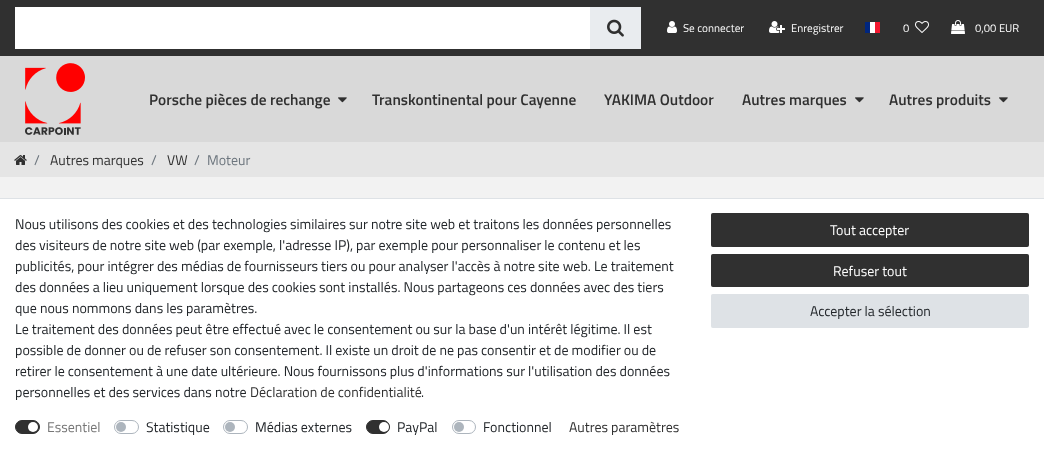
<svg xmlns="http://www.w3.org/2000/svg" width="1044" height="451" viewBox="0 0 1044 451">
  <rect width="100%" height="100%" fill="#e5e5e5"/>
  <path d="M0 0h1044v56H0z" fill="#303030"/>
  <path d="M15 7h575v42H15z" fill="#fff"/>
  <path d="M590 7h51v42H590z" fill="#e9ecef"/>
  <image x="607" y="19" width="17" height="18" href="img/1.png"/>
  <image x="667" y="21" width="10" height="12" href="img/2.png"/>
  <image x="769" y="21" width="16" height="12" href="img/3.png"/>
  <path d="M870 22h5v11H870z" fill="#fff"/>
  <path d="M865 22h5v11H865z" fill="#00267f"/>
  <path d="M875 22h5v11H875z" fill="#f31830"/>
  <image x="915" y="21" width="14" height="12" href="img/4.png"/>
  <image x="951" y="20" width="14" height="14" href="img/5.png"/>
  <path d="M0 56h1044v86H0z" fill="#d9d9d9"/>
  <image x="25" y="63" width="60" height="72" href="img/6.png"/>
  <image x="338" y="97" width="9" height="6" href="img/7.png"/>
  <image x="855" y="97" width="9" height="6" href="img/7.png"/>
  <image x="999" y="97" width="9" height="6" href="img/7.png"/>
  <image x="14" y="155" width="13" height="10" href="img/8.png"/>
  <path d="M0 177h1044v21H0z" fill="#f2f2f2"/>
  <path d="M0 199h1044v252H0z" fill="#fff"/>
  <path d="M0 198h1044v1H0z" fill="#dee2e6"/>
  <rect x="15.5" y="420.5" width="24" height="13" rx="6.5" fill="#303030" stroke="#303030"/>
  <circle cx="33" cy="427" r="5" fill="#fff"/>
  <rect x="114.5" y="420.5" width="24" height="13" rx="6.5" fill="none" stroke="#adb5bd"/>
  <circle cx="121" cy="427" r="5" fill="#adb5bd"/>
  <rect x="223.5" y="420.5" width="24" height="13" rx="6.5" fill="none" stroke="#adb5bd"/>
  <circle cx="230" cy="427" r="5" fill="#adb5bd"/>
  <rect x="366.5" y="420.5" width="23" height="13" rx="6.5" fill="#303030" stroke="#303030"/>
  <circle cx="384" cy="427" r="5" fill="#fff"/>
  <rect x="452.5" y="420.5" width="23" height="13" rx="6.5" fill="none" stroke="#adb5bd"/>
  <circle cx="459" cy="427" r="5" fill="#adb5bd"/>
  <rect x="711.5" y="213.5" width="317" height="33" rx="1" fill="#303030" stroke="#303030"/>
  <rect x="711.5" y="254.5" width="317" height="32" rx="1" fill="#303030" stroke="#303030"/>
  <rect x="711.5" y="294.5" width="317" height="33" rx="1" fill="#dee2e6" stroke="#dee2e6"/>
  <g font-family="Titillium Web" font-size="11.25" fill="#fff">
    <text x="683" y="32">Se connecter</text>
    <text x="791" y="32">Enregistrer</text>
    <text x="903" y="32">0</text>
    <text x="975" y="32">0,00 EUR</text>
  </g>
  <g font-family="Titillium Web" font-size="15.4" font-weight="600" fill="#303030">
    <text x="149" y="105">Porsche pièces de rechange</text>
    <text x="372" y="105">Transkontinental pour Cayenne</text>
    <text x="604" y="105">YAKIMA Outdoor</text>
    <text x="742" y="105">Autres marques</text>
    <text x="889" y="105">Autres produits</text>
  </g>
  <text x="34" y="165" font-family="Titillium Web" font-size="14" fill="#6c757d">/</text>
  <text x="50" y="165" font-family="Titillium Web" font-size="14" fill="#303030">Autres marques</text>
  <text x="151" y="165" font-family="Titillium Web" font-size="14" fill="#6c757d">/</text>
  <text x="167" y="165" font-family="Titillium Web" font-size="14" fill="#303030">VW</text>
  <g font-family="Titillium Web" font-size="14" fill="#6c757d">
    <text x="194" y="165">/</text>
    <text x="207" y="165">Moteur</text>
  </g>
  <g font-family="Titillium Web" font-size="14" fill="#212529">
    <text x="15" y="229">Nous utilisons des cookies et des technologies similaires sur notre site web et traitons les données personnelles</text>
    <text x="15" y="250">des visiteurs de notre site web (par exemple, l'adresse IP), par exemple pour personnaliser le contenu et les</text>
    <text x="15" y="271">publicités, pour intégrer des médias de fournisseurs tiers ou pour analyser l'accès à notre site web. Le traitement</text>
    <text x="15" y="292">des données a lieu uniquement lorsque des cookies sont installés. Nous partageons ces données avec des tiers</text>
    <text x="15" y="313">que nous nommons dans les paramètres.</text>
    <text x="15" y="334">Le traitement des données peut être effectué avec le consentement ou sur la base d'un intérêt légitime. Il est</text>
    <text x="15" y="355">possible de donner ou de refuser son consentement. Il existe un droit de ne pas consentir et de modifier ou de</text>
    <text x="15" y="376">retirer le consentement à une date ultérieure. Nous fournissons plus d'informations sur l'utilisation des données</text>
    <text x="15" y="397">personnelles et des services dans notre</text>
  </g>
  <text x="250" y="397" font-family="Titillium Web" font-size="14" fill="#303030">Déclaration de confidentialité</text>
  <text x="421" y="397" font-family="Titillium Web" font-size="14" fill="#212529">.</text>
  <text x="47" y="432" font-family="Titillium Web" font-size="14" fill="#767676">Essentiel</text>
  <g font-family="Titillium Web" font-size="14" fill="#212529">
    <text x="146" y="432">Statistique</text>
    <text x="255" y="432">Médias externes</text>
    <text x="397" y="432">PayPal</text>
    <text x="483" y="432">Fonctionnel</text>
  </g>
  <text x="569" y="432" font-family="Titillium Web" font-size="14" fill="#303030">Autres paramètres</text>
  <g font-family="Titillium Web" font-size="14" fill="#fff">
    <text x="830" y="235">Tout accepter</text>
    <text x="833" y="276">Refuser tout</text>
  </g>
  <text x="810" y="316" font-family="Titillium Web" font-size="14" fill="#212529">Accepter la sélection</text>
</svg>
